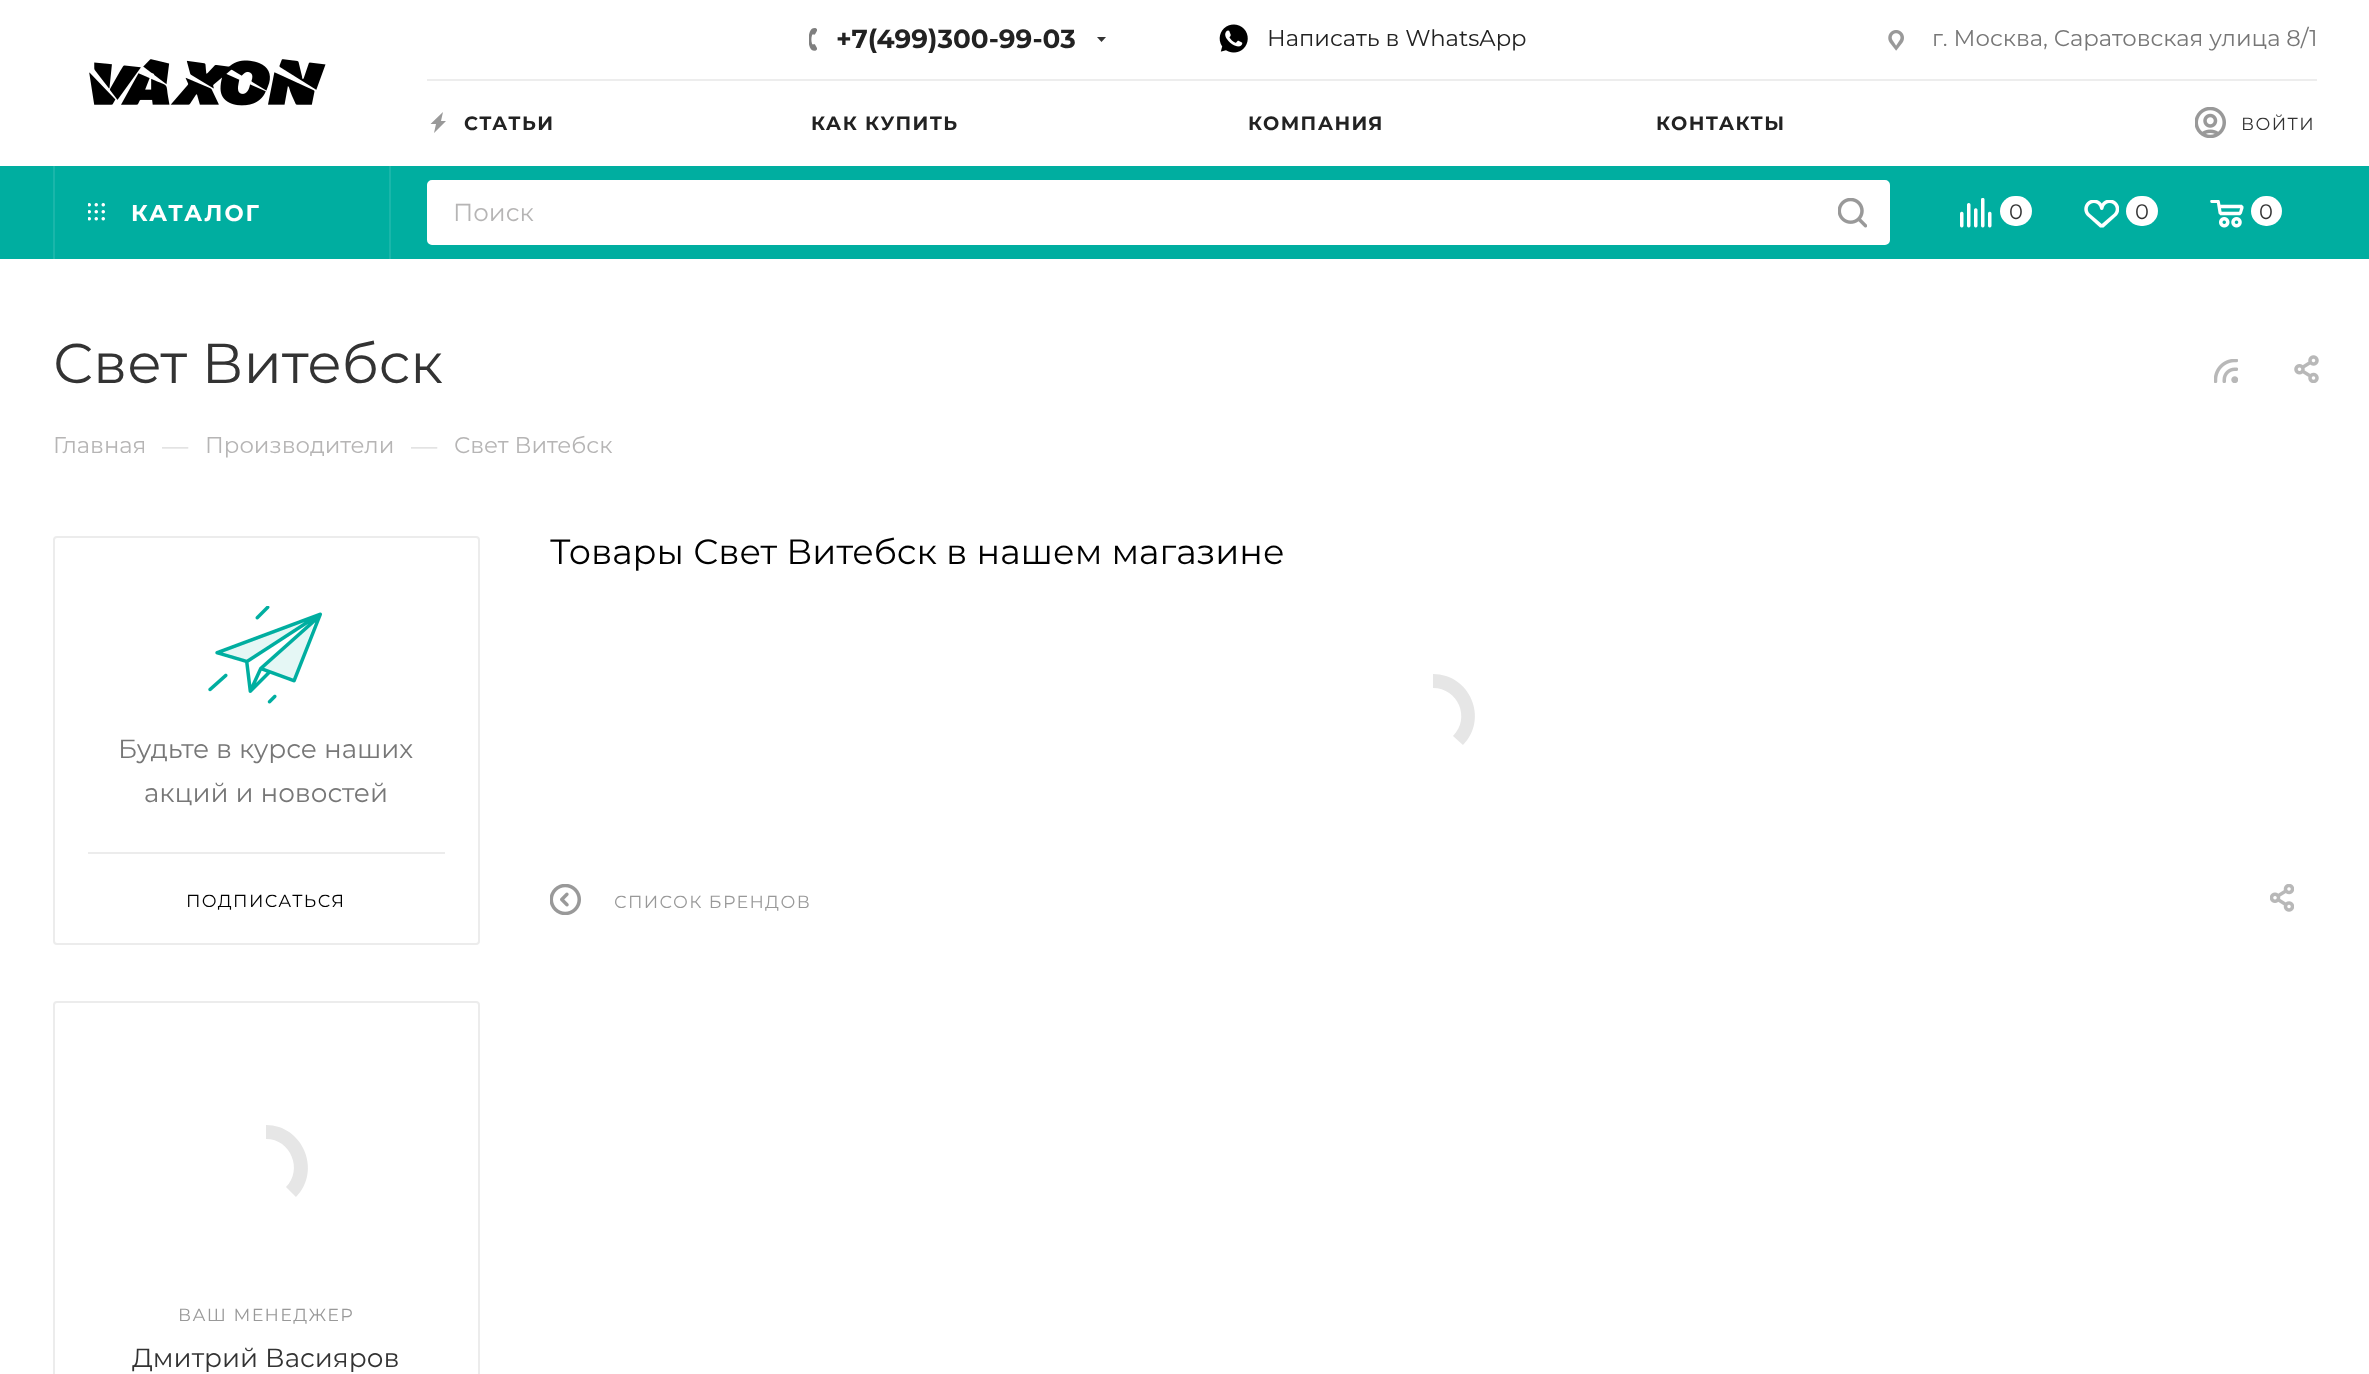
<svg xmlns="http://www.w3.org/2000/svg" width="2369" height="1374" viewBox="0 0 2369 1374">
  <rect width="100%" height="100%" fill="#fff"/>
  <image x="89" y="59" width="237" height="47" href="img/1.png"/>
  <image x="809" y="28" width="8" height="23" href="img/2.png"/>
  <path d="M1097 37H1106L1101.5 42Z" fill="#333" fill-rule="evenodd"/>
  <image x="1219" y="24" width="29" height="29" href="img/3.png"/>
  <image x="1888" y="30" width="16" height="21" href="img/4.png"/>
  <path d="M427 79h1890v2H427z" fill="#ededed"/>
  <path d="M443 112L430.5 124H436L434 133L446 121H441Z" fill="#999" fill-rule="evenodd"/>
  <image x="2195" y="107" width="31" height="31" href="img/5.png"/>
  <path d="M0 166h2369v93H0z" fill="#00aea0"/>
  <path d="M389 166h2v93H389z" fill="#1ab6aa"/>
  <path d="M53 166h2v93H53z" fill="#1ab6aa"/>
  <image x="88" y="203" width="17" height="18" href="img/6.png"/>
  <rect x="428" y="181" width="1461" height="63" rx="4" fill="#fff" stroke="#fff" stroke-width="2"/>
  <image x="1838" y="198" width="29" height="30" href="img/7.png"/>
  <image x="1960" y="198" width="32" height="30" href="img/8.png"/>
  <rect x="2000" y="196" width="32" height="30" rx="15" fill="#fff"/>
  <image x="2084" y="200" width="35" height="28" href="img/9.png"/>
  <rect x="2126" y="196" width="32" height="30" rx="15" fill="#fff"/>
  <image x="2210" y="200" width="34" height="28" href="img/10.png"/>
  <rect x="2251" y="196" width="31" height="30" rx="15" fill="#fff"/>
  <image x="2214" y="359" width="24" height="24" href="img/11.png"/>
  <image x="2294" y="355" width="25" height="28" href="img/12.png"/>
  <rect x="54" y="537" width="425" height="407" rx="3" fill="none" stroke="#ececec" stroke-width="2"/>
  <image x="208" y="606" width="114" height="98" href="img/13.png"/>
  <path d="M88 852h357v2H88z" fill="#ececec"/>
  <rect x="54" y="1002" width="425" height="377" rx="3" fill="none" stroke="#ececec" stroke-width="2"/>
  <path d="M266 1125C303 1125 322 1171 296 1197L286 1187C303 1170 291 1139 266 1139Z" fill="#e6e6e6"/>
  <path d="M1433 674C1470 674 1489 719 1463 745L1453 736C1471 718 1458 688 1433 688Z" fill="#e6e6e6"/>
  <image x="550" y="884" width="31" height="31" href="img/14.png"/>
  <image x="2270" y="884" width="24" height="28" href="img/15.png"/>
  <text x="836" y="48" font-family="Montserrat" font-size="26.25" font-weight="bold" fill="#222">+7(499)300-99-03</text>
  <text x="1267" y="46" font-family="Montserrat" font-size="22.75" fill="#222">Написать в WhatsApp</text>
  <text x="1932" y="46" font-family="Montserrat" font-size="22.75" fill="#777">г. Москва, Саратовская улица 8/1</text>
  <g font-family="Montserrat" font-size="19.25" font-weight="bold" letter-spacing="1.4" fill="#222">
    <text x="464" y="130">СТАТЬИ</text>
    <text x="811" y="130">КАК КУПИТЬ</text>
    <text x="1248" y="130">КОМПАНИЯ</text>
    <text x="1656" y="130">КОНТАКТЫ</text>
  </g>
  <text x="2241" y="130" font-family="Montserrat" font-size="17.5" letter-spacing="1.4" fill="#333">ВОЙТИ</text>
  <text x="131" y="221" font-family="Montserrat" font-size="22.75" font-weight="bold" letter-spacing="2" fill="#fff">КАТАЛОГ</text>
  <text x="453" y="221" font-family="Montserrat" font-size="24.5" fill="#b6b5b5">Поиск</text>
  <g font-family="Montserrat" font-size="21" fill="#333">
    <text x="2009" y="219">0</text>
    <text x="2135" y="219">0</text>
    <text x="2259" y="219">0</text>
  </g>
  <text x="53" y="383" font-family="Montserrat" font-size="56" fill="#333">Свет Витебск</text>
  <text x="53" y="453" font-family="Montserrat" font-size="22.75" fill="#b6b5b5">Главная</text>
  <text x="162" y="455" font-family="Montserrat" font-size="26.25" fill="#ddd">—</text>
  <text x="205" y="453" font-family="Montserrat" font-size="22.75" fill="#b6b5b5">Производители</text>
  <text x="411" y="455" font-family="Montserrat" font-size="26.25" fill="#ddd">—</text>
  <text x="454" y="453" font-family="Montserrat" font-size="22.75" fill="#b6b5b5">Свет Витебск</text>
  <g font-family="Montserrat" font-size="26.25" fill="#777">
    <text x="118" y="758">Будьте в курсе наших</text>
    <text x="144" y="802">акций и новостей</text>
  </g>
  <text x="186" y="907" font-family="Montserrat" font-size="17.5" letter-spacing="1.4" fill="#000">ПОДПИСАТЬСЯ</text>
  <text x="178" y="1321" font-family="Montserrat" font-size="17.5" letter-spacing="1.4" fill="#999">ВАШ МЕНЕДЖЕР</text>
  <text x="132" y="1367" font-family="Montserrat" font-size="26.25" fill="#333">Дмитрий Васияров</text>
  <text x="550" y="564" font-family="Montserrat" font-size="35" fill="#000">Товары Свет Витебск в нашем магазине</text>
  <text x="614" y="908" font-family="Montserrat" font-size="17.5" letter-spacing="1.4" fill="#999">СПИСОК БРЕНДОВ</text>
</svg>
